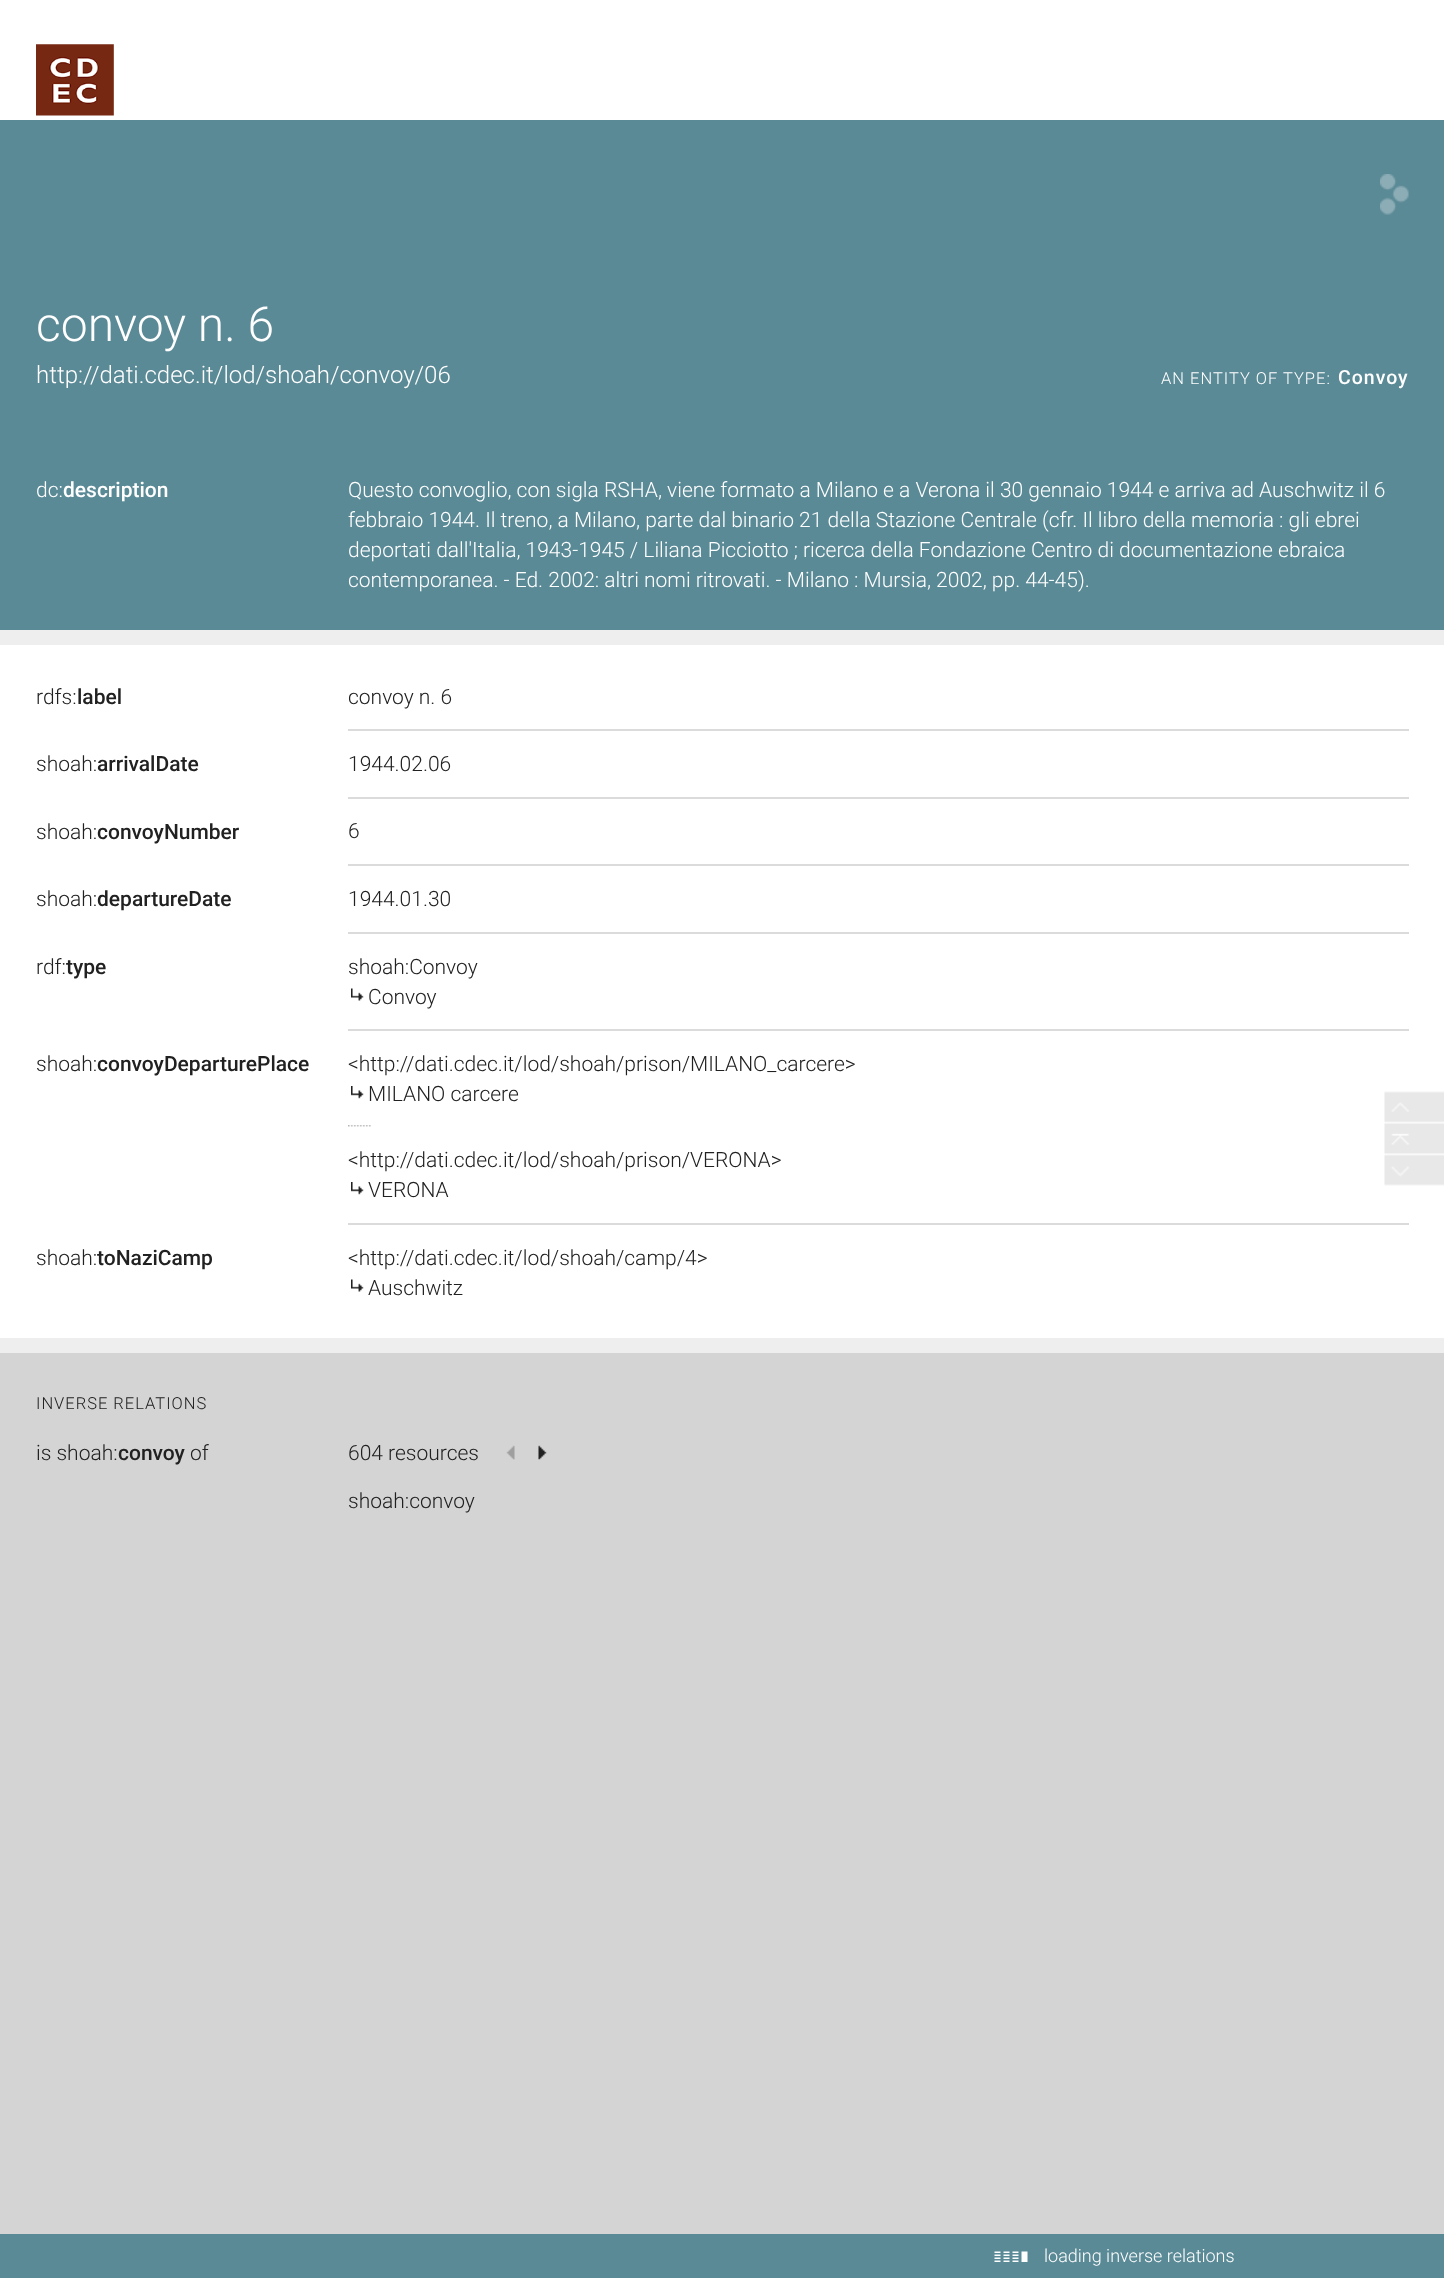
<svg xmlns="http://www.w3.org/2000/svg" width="1444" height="2278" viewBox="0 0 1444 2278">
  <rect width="100%" height="100%" fill="#5b8a97"/>
  <path d="M0 0h1444v120H0z" fill="#fff"/>
  <image x="36" y="44" width="78" height="72" href="img/1.png"/>
  <image x="1380" y="174" width="29" height="41" href="img/2.png"/>
  <path d="M0 630h1444v15H0z" fill="#eee"/>
  <path d="M0 645h1444v693H0z" fill="#fff"/>
  <path d="M348 729h1061v2H348z" fill="#dbdbdb"/>
  <path d="M348 797h1061v2H348z" fill="#dbdbdb"/>
  <path d="M348 864h1061v2H348z" fill="#dbdbdb"/>
  <path d="M348 932h1061v2H348z" fill="#dbdbdb"/>
  <path d="M348 1029h1061v2H348z" fill="#dbdbdb"/>
  <image x="351" y="988" width="13" height="13" href="img/3.png"/>
  <path d="M348 1223h1061v2H348z" fill="#dbdbdb"/>
  <image x="348" y="1125" width="23" height="2" href="img/4.png"/>
  <image x="351" y="1086" width="13" height="13" href="img/5.png"/>
  <image x="351" y="1182" width="13" height="13" href="img/5.png"/>
  <image x="351" y="1279" width="13" height="13" href="img/3.png"/>
  <path d="M0 1338h1444v15H0z" fill="#eee"/>
  <path d="M0 1353h1444v881H0z" fill="#d4d4d4"/>
  <image x="506" y="1445" width="9" height="15" href="img/6.png"/>
  <image x="538" y="1445" width="9" height="15" href="img/7.png"/>
  <image x="1384" y="1091" width="60" height="32" href="img/8.png"/>
  <image x="1384" y="1123" width="60" height="31" href="img/9.png"/>
  <image x="1384" y="1154" width="60" height="32" href="img/10.png"/>
  <image x="994" y="2251" width="34" height="11" href="img/11.png"/>
  <text x="36" y="341" font-family="Roboto" font-size="48" font-weight="300" fill="#fff">convoy n. 6</text>
  <text x="36" y="383" font-family="Roboto" font-size="24" font-weight="300" fill="#fff">http://dati.cdec.it/lod/shoah/convoy/06</text>
  <text x="1161" y="384" font-family="Roboto" font-size="16.5" font-weight="300" letter-spacing="1" fill="#fff">AN ENTITY OF TYPE:</text>
  <text x="1338" y="384" font-family="Roboto" font-size="19.5" font-weight="500" letter-spacing="1" fill="#fff">Convoy</text>
  <text x="36" y="497" font-family="Roboto" font-size="21" font-weight="300" fill="#fff">dc:</text>
  <text x="63" y="497" font-family="Roboto" font-size="21" font-weight="500" fill="#fff">description</text>
  <g font-family="Roboto" font-size="21" font-weight="300" fill="#fff">
    <text x="348" y="497">Questo convoglio, con sigla RSHA, viene formato a Milano e a Verona il 30 gennaio 1944 e arriva ad Auschwitz il 6</text>
    <text x="348" y="527">febbraio 1944. Il treno, a Milano, parte dal binario 21 della Stazione Centrale (cfr. Il libro della memoria : gli ebrei</text>
    <text x="348" y="557">deportati dall'Italia, 1943-1945 / Liliana Picciotto ; ricerca della Fondazione Centro di documentazione ebraica</text>
    <text x="348" y="587">contemporanea. - Ed. 2002: altri nomi ritrovati. - Milano : Mursia, 2002, pp. 44-45).</text>
  </g>
  <text x="36" y="704" font-family="Roboto" font-size="21" font-weight="300" fill="#212121">rdfs:</text>
  <text x="77" y="704" font-family="Roboto" font-size="21" font-weight="500" fill="#212121">label</text>
  <g font-family="Roboto" font-size="21" font-weight="300" fill="#212121">
    <text x="348" y="704">convoy n. 6</text>
    <text x="36" y="771">shoah:</text>
  </g>
  <text x="97" y="771" font-family="Roboto" font-size="21" font-weight="500" fill="#212121">arrivalDate</text>
  <g font-family="Roboto" font-size="21" font-weight="300" fill="#212121">
    <text x="348" y="771">1944.02.06</text>
    <text x="36" y="839">shoah:</text>
  </g>
  <text x="97" y="839" font-family="Roboto" font-size="21" font-weight="500" fill="#212121">convoyNumber</text>
  <g font-family="Roboto" font-size="21" font-weight="300" fill="#212121">
    <text x="348" y="838">6</text>
    <text x="36" y="906">shoah:</text>
  </g>
  <text x="97" y="906" font-family="Roboto" font-size="21" font-weight="500" fill="#212121">departureDate</text>
  <g font-family="Roboto" font-size="21" font-weight="300" fill="#212121">
    <text x="348" y="906">1944.01.30</text>
    <text x="36" y="974">rdf:</text>
  </g>
  <text x="66" y="974" font-family="Roboto" font-size="21" font-weight="500" fill="#212121">type</text>
  <g font-family="Roboto" font-size="21" font-weight="300" fill="#212121">
    <text x="348" y="974">shoah:Convoy</text>
    <text x="368" y="1004">Convoy</text>
    <text x="36" y="1071">shoah:</text>
  </g>
  <text x="97" y="1071" font-family="Roboto" font-size="21" font-weight="500" fill="#212121">convoyDeparturePlace</text>
  <g font-family="Roboto" font-size="21" font-weight="300" fill="#212121">
    <text x="348" y="1071">&lt;http://dati.cdec.it/lod/shoah/prison/MILANO_carcere&gt;</text>
    <text x="368" y="1101">MILANO carcere</text>
    <text x="348" y="1167">&lt;http://dati.cdec.it/lod/shoah/prison/VERONA&gt;</text>
    <text x="368" y="1197">VERONA</text>
    <text x="36" y="1265">shoah:</text>
  </g>
  <text x="97" y="1265" font-family="Roboto" font-size="21" font-weight="500" fill="#212121">toNaziCamp</text>
  <g font-family="Roboto" font-size="21" font-weight="300" fill="#212121">
    <text x="348" y="1265">&lt;http://dati.cdec.it/lod/shoah/camp/4&gt;</text>
    <text x="368" y="1295">Auschwitz</text>
  </g>
  <text x="36" y="1409" font-family="Roboto" font-size="16.5" font-weight="300" letter-spacing="1" fill="#212121">INVERSE RELATIONS</text>
  <text x="36" y="1460" font-family="Roboto" font-size="21" font-weight="300" fill="#212121">is shoah:</text>
  <text x="118" y="1460" font-family="Roboto" font-size="21" font-weight="500" fill="#212121">convoy</text>
  <g font-family="Roboto" font-size="21" font-weight="300" fill="#212121">
    <text x="190" y="1460">of</text>
    <text x="348" y="1460">604 resources</text>
    <text x="348" y="1508">shoah:convoy</text>
  </g>
  <text x="1044" y="2262" font-family="Roboto" font-size="18" font-weight="300" fill="#fff">loading inverse relations</text>
</svg>
